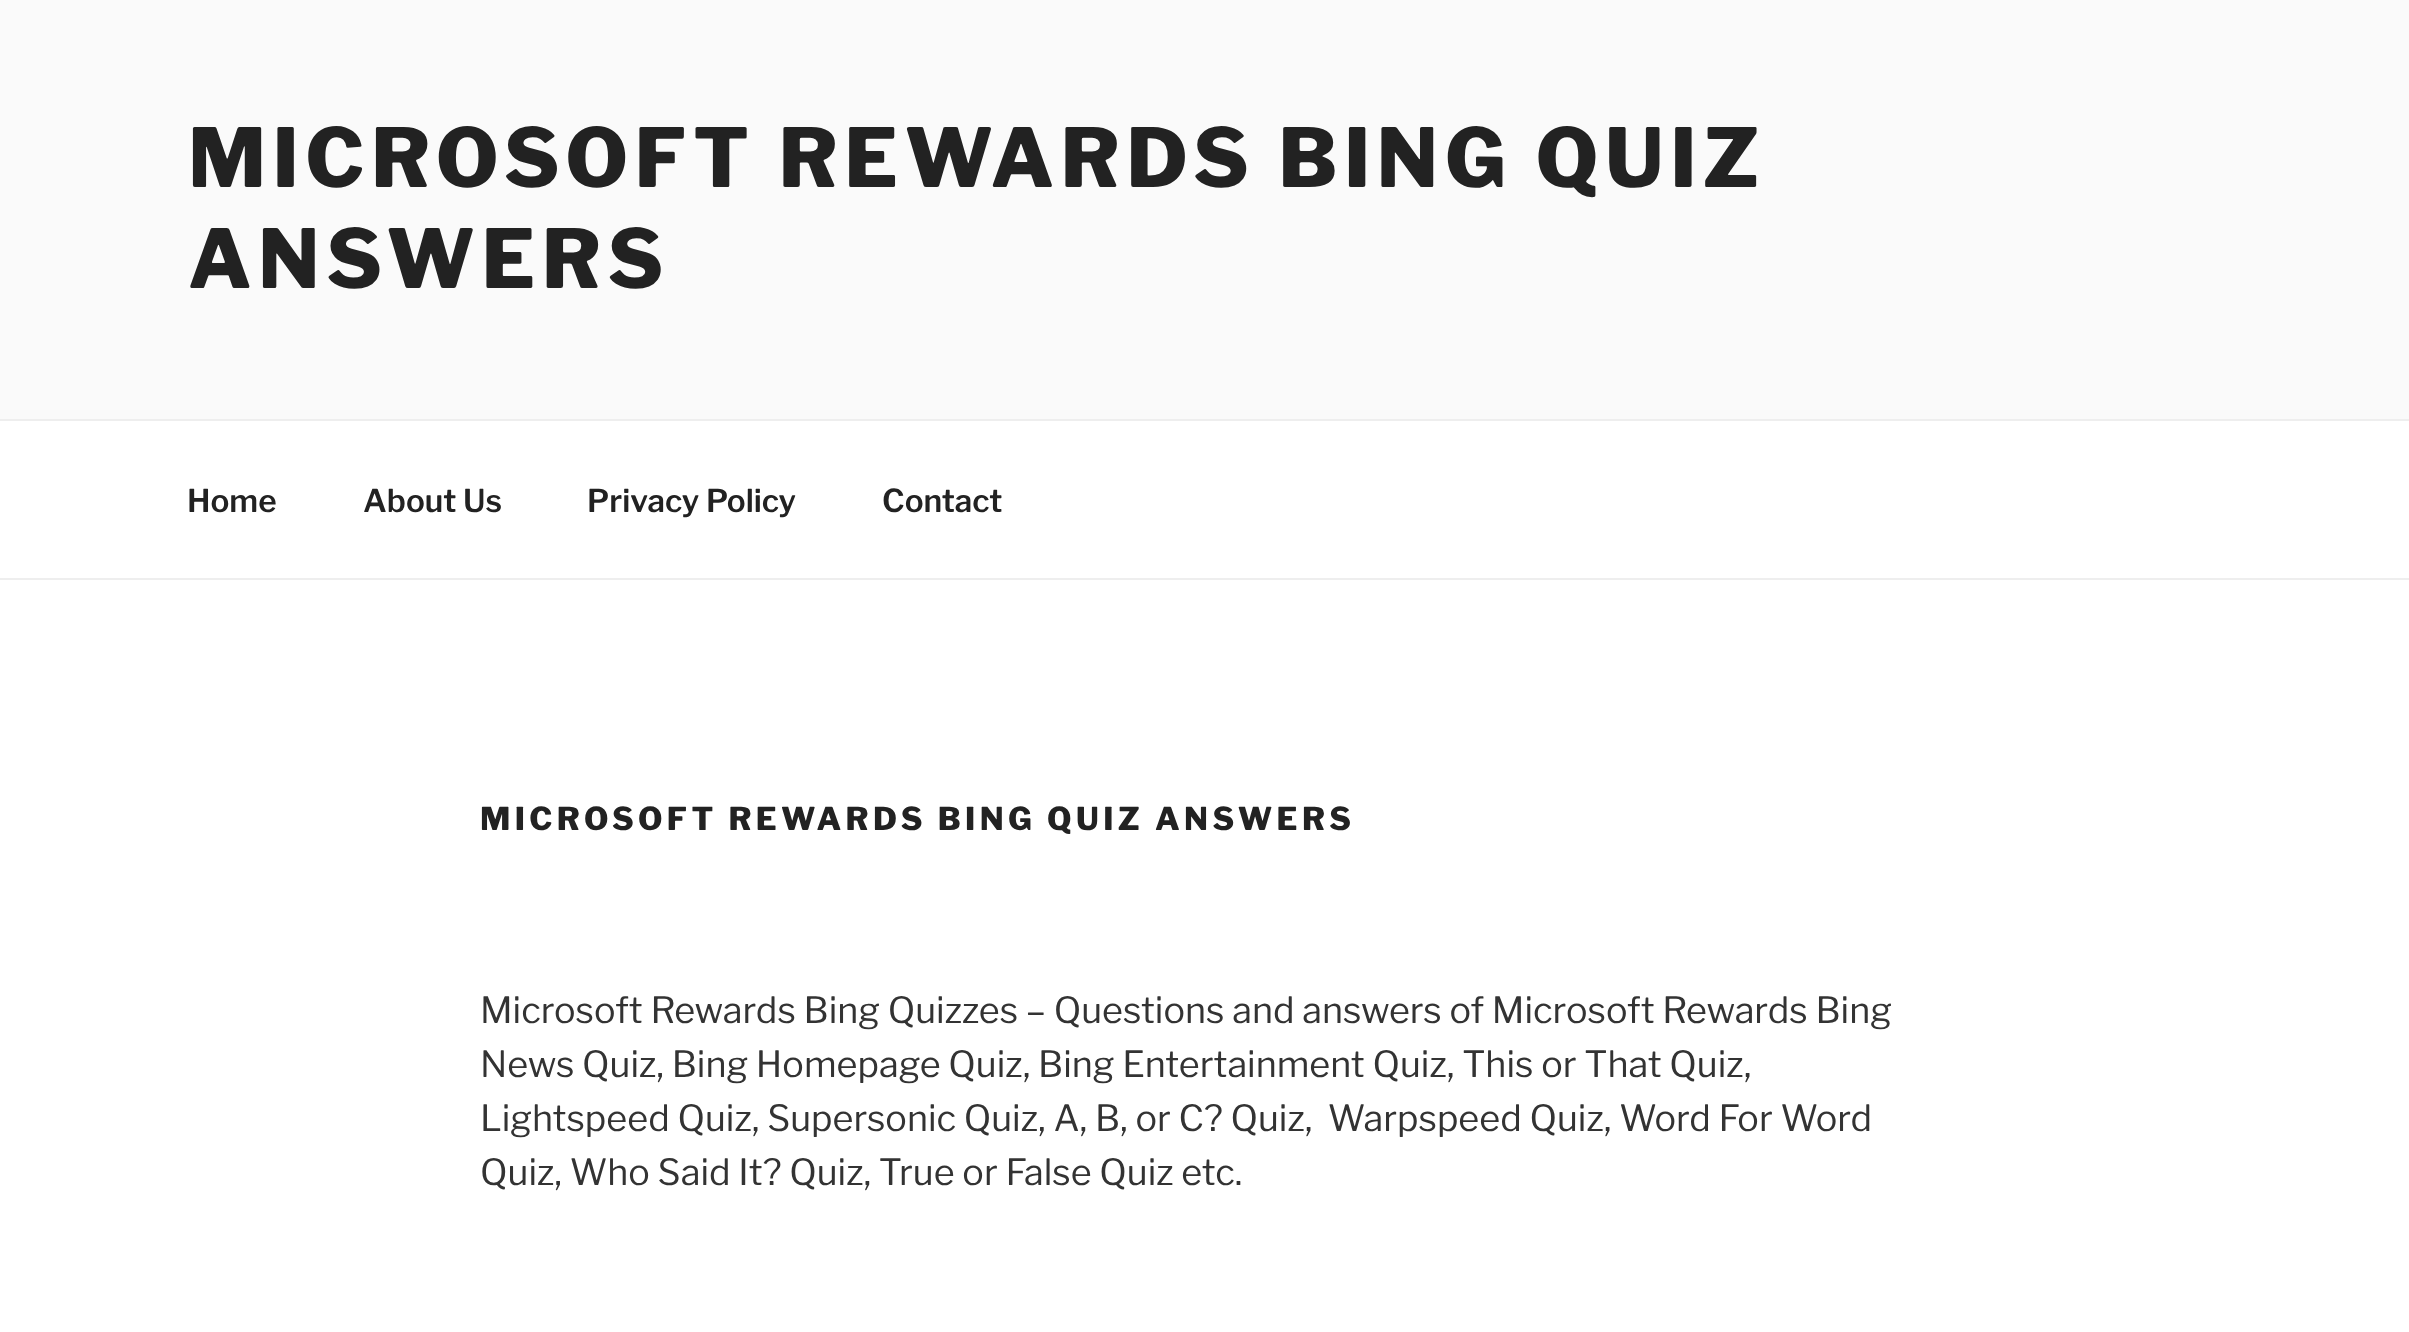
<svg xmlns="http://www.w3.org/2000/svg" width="2409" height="1332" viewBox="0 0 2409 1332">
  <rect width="100%" height="100%" fill="#fff"/>
  <path d="M0 0h2409v419H0z" fill="#fafafa"/>
  <path d="M0 419h2409v2H0z" fill="#eee"/>
  <path d="M0 578h2409v2H0z" fill="#eee"/>
  <g font-family="Libre Franklin" font-size="81" font-weight="100" letter-spacing="6.5" fill="#222">
    <text x="188" y="187">MICROSOFT REWARDS BING QUIZ</text>
    <text x="188" y="288">ANSWERS</text>
  </g>
  <g font-family="'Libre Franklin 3'" font-size="31.5" font-weight="100" fill="#222">
    <text x="187" y="512">Home</text>
    <text x="363" y="512">About Us</text>
    <text x="587" y="512">Privacy Policy</text>
    <text x="882" y="512">Contact</text>
  </g>
  <text x="480" y="830" font-family="Libre Franklin" font-size="31.5" font-weight="100" letter-spacing="4.4" fill="#222">MICROSOFT REWARDS BING QUIZ ANSWERS</text>
  <g font-family="'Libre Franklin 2'" font-size="36" font-weight="100" fill="#333">
    <text x="480" y="1023">Microsoft Rewards Bing Quizzes – Questions and answers of Microsoft Rewards Bing</text>
    <text x="480" y="1077">News Quiz, Bing Homepage Quiz, Bing Entertainment Quiz, This or That Quiz,</text>
    <text x="480" y="1131" xml:space="preserve">Lightspeed Quiz, Supersonic Quiz, A, B, or C? Quiz,  Warpspeed Quiz, Word For Word</text>
    <text x="480" y="1185">Quiz, Who Said It? Quiz, True or False Quiz etc.</text>
  </g>
</svg>
